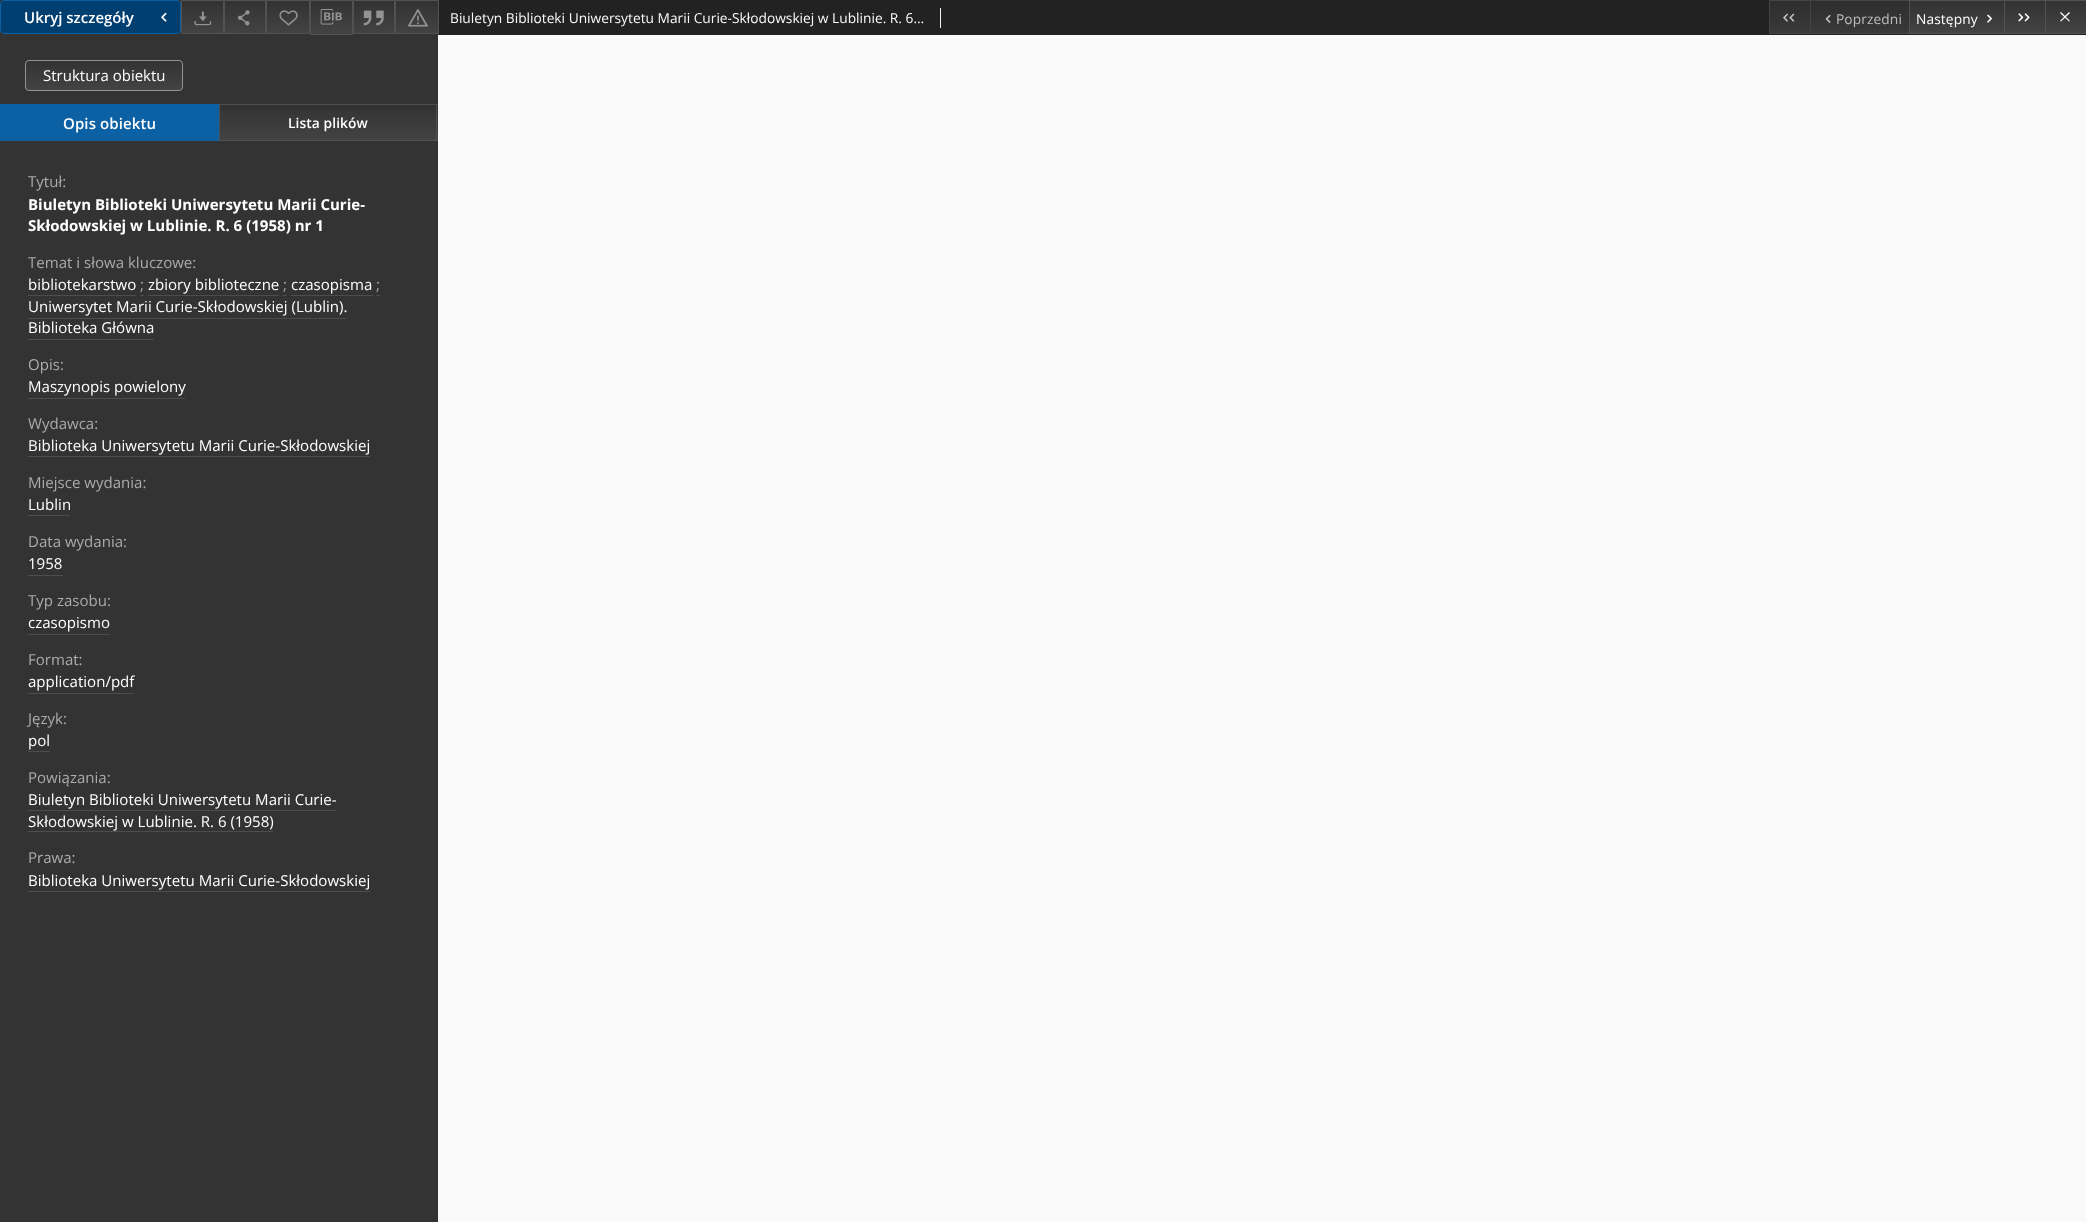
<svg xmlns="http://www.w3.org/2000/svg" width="2086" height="1222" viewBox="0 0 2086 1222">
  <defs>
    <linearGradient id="g1" gradientUnits="userSpaceOnUse" x1="203" y1="1.2" x2="203" y2="33"><stop offset="0" stop-color="#333"/><stop offset="1" stop-color="#434343"/></linearGradient>
    <linearGradient id="g2" gradientUnits="userSpaceOnUse" x1="245" y1="1.2" x2="245" y2="33"><stop offset="0" stop-color="#333"/><stop offset="1" stop-color="#434343"/></linearGradient>
    <linearGradient id="g3" gradientUnits="userSpaceOnUse" x1="288" y1="1.2" x2="288" y2="33"><stop offset="0" stop-color="#333"/><stop offset="1" stop-color="#434343"/></linearGradient>
    <linearGradient id="g4" gradientUnits="userSpaceOnUse" x1="331" y1="1.2" x2="331" y2="34"><stop offset="0" stop-color="#333"/><stop offset="1" stop-color="#434343"/></linearGradient>
    <linearGradient id="g5" gradientUnits="userSpaceOnUse" x1="374" y1="1.2" x2="374" y2="33"><stop offset="0" stop-color="#333"/><stop offset="1" stop-color="#434343"/></linearGradient>
    <linearGradient id="g6" gradientUnits="userSpaceOnUse" x1="417" y1="1.2" x2="417" y2="33"><stop offset="0" stop-color="#333"/><stop offset="1" stop-color="#434343"/></linearGradient>
    <linearGradient id="g7" gradientUnits="userSpaceOnUse" x1="1790" y1="1.2" x2="1790" y2="33"><stop offset="0" stop-color="#2e2e2e"/><stop offset="1" stop-color="#393939"/></linearGradient>
    <linearGradient id="g8" gradientUnits="userSpaceOnUse" x1="2025" y1="1.2" x2="2025" y2="33"><stop offset="0" stop-color="#333"/><stop offset="1" stop-color="#434343"/></linearGradient>
    <linearGradient id="g9" gradientUnits="userSpaceOnUse" x1="2066" y1="1.2" x2="2066" y2="33"><stop offset="0" stop-color="#333"/><stop offset="1" stop-color="#434343"/></linearGradient>
    <linearGradient id="g10" gradientUnits="userSpaceOnUse" x1="1860" y1="1.2" x2="1860" y2="33"><stop offset="0" stop-color="#2e2e2e"/><stop offset="1" stop-color="#393939"/></linearGradient>
    <linearGradient id="g11" gradientUnits="userSpaceOnUse" x1="1957" y1="1.2" x2="1957" y2="33"><stop offset="0" stop-color="#333"/><stop offset="1" stop-color="#434343"/></linearGradient>
    <clipPath id="clip1"><rect x="25" y="60" width="158" height="31" rx="4"/></clipPath>
    <linearGradient id="g12" gradientUnits="userSpaceOnUse" x1="104" y1="61" x2="104" y2="90"><stop offset="0" stop-color="#333"/><stop offset="1" stop-color="#434343"/></linearGradient>
    <linearGradient id="g13" gradientUnits="userSpaceOnUse" x1="328" y1="105" x2="328" y2="140"><stop offset="0" stop-color="#333"/><stop offset="1" stop-color="#434343"/></linearGradient>
  </defs>
  <rect width="100%" height="100%" fill="#f9f9f9"/>
  <path d="M0 0h439v35H0z" fill="#333"/>
  <rect x="0.5" y="0.5" width="180" height="33" rx="3.5" fill="#023f71" stroke="#0c61a5"/>
  <image x="161" y="12" width="6" height="10" href="img/1.png"/>
  <rect x="-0.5" y="-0.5" width="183" height="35" rx="4.5" fill="none" stroke="#333"/>
  <path d="M182 6h41v27H182z" fill="url(#g1)"/>
  <path d="M181.5 0.5h42v33H181.5z" fill="none" stroke="#525252"/>
  <image x="194" y="11" width="18" height="15" href="img/2.png"/>
  <path d="M225 6h40v27H225z" fill="url(#g2)"/>
  <path d="M224.5 0.5h41v33H224.5z" fill="none" stroke="#525252"/>
  <image x="238" y="10" width="12" height="16" href="img/3.png"/>
  <path d="M267 6h42v27H267z" fill="url(#g3)"/>
  <path d="M266.5 0.5h43v33H266.5z" fill="none" stroke="#525252"/>
  <image x="279" y="10" width="19" height="16" href="img/4.png"/>
  <path d="M311 6h41v28H311z" fill="url(#g4)"/>
  <path d="M310.5 0.5h42v34H310.5z" fill="none" stroke="#525252"/>
  <image x="320" y="9" width="22" height="16" href="img/5.png"/>
  <path d="M354 6h40v27H354z" fill="url(#g5)"/>
  <path d="M353.5 0.5h41v33H353.5z" fill="none" stroke="#525252"/>
  <image x="363" y="10" width="21" height="16" href="img/6.png"/>
  <path d="M396 6h42v27H396z" fill="url(#g6)"/>
  <path d="M395.5 0.5h43v33H395.5z" fill="none" stroke="#525252"/>
  <image x="408" y="9" width="20" height="18" href="img/7.png"/>
  <path d="M439 0h1647v35H439z" fill="#222"/>
  <path d="M940 8h1v20H940z" fill="#f5f5f5"/>
  <path d="M1770 1h40v32H1770z" fill="url(#g7)"/>
  <path d="M1769 0h140v1H1769z" fill="#444"/>
  <path d="M1769 33h140v1H1769z" fill="#444"/>
  <path d="M1769 0h1v34H1769z" fill="#444"/>
  <image x="1783" y="13" width="5" height="9" href="img/8.png"/>
  <image x="1789" y="13" width="6" height="9" href="img/9.png"/>
  <path d="M2005 1h40v32H2005z" fill="url(#g8)"/>
  <path d="M1909 0h177v1H1909z" fill="#525252"/>
  <path d="M1909 33h177v1H1909z" fill="#525252"/>
  <path d="M2004 0h1v34H2004z" fill="#525252"/>
  <image x="2018" y="13" width="6" height="9" href="img/10.png"/>
  <image x="2024" y="13" width="6" height="9" href="img/11.png"/>
  <path d="M2046 1h40v32H2046z" fill="url(#g9)"/>
  <path d="M2045 0h1v34H2045z" fill="#525252"/>
  <path d="M2060 21L2069 12L2070 13L2061 21.5Z" fill="#fff"/>
  <path d="M2061 12L2070 21L2069 21.5L2060 13Z" fill="#fff"/>
  <path d="M1811 1h98v32H1811z" fill="url(#g10)"/>
  <path d="M1810 0h1v34H1810z" fill="#444"/>
  <image x="1825" y="14" width="6" height="9" href="img/12.png"/>
  <path d="M1910 1h94v32H1910z" fill="url(#g11)"/>
  <path d="M1909 0h1v34H1909z" fill="#525252"/>
  <image x="1987" y="14" width="6" height="9" href="img/13.png"/>
  <path d="M0 35h438v1187H0z" fill="#333"/>
  <g clip-path="url(#clip1)">
    <path d="M25 61h158v29H25z" fill="url(#g12)"/>
  </g>
  <rect x="25.5" y="60.5" width="157" height="30" rx="3.5" fill="none" stroke="#939393"/>
  <path d="M0 104h219v37H0z" fill="#0c61a5"/>
  <path d="M220 110h218v30H220z" fill="url(#g13)"/>
  <path d="M219 104h219v1H219z" fill="#4d4d4d"/>
  <path d="M436 104h1v37H436z" fill="#4d4d4d"/>
  <path d="M219 140h219v1H219z" fill="#525252"/>
  <path d="M219 104h1v37H219z" fill="#4d4d4d"/>
  <path d="M28 295h108v1H28z" fill="#4d4d4d"/>
  <path d="M140 295h4v1H140z" fill="#4d4d4d"/>
  <path d="M148 295h131v1H148z" fill="#4d4d4d"/>
  <path d="M283 295h4v1H283z" fill="#4d4d4d"/>
  <path d="M291 295h82v1H291z" fill="#4d4d4d"/>
  <path d="M376 295h4v1H376z" fill="#4d4d4d"/>
  <path d="M28 318h318v1H28z" fill="#4d4d4d"/>
  <path d="M28 339h126v1H28z" fill="#4d4d4d"/>
  <path d="M28 398h157v1H28z" fill="#4d4d4d"/>
  <path d="M28 456h342v1H28z" fill="#4d4d4d"/>
  <path d="M28 515h42v1H28z" fill="#4d4d4d"/>
  <path d="M28 575h35v1H28z" fill="#4d4d4d"/>
  <path d="M28 634h82v1H28z" fill="#4d4d4d"/>
  <path d="M28 693h106v1H28z" fill="#4d4d4d"/>
  <path d="M28 751h22v1H28z" fill="#4d4d4d"/>
  <path d="M28 810h308v1H28z" fill="#4d4d4d"/>
  <path d="M28 831h245v1H28z" fill="#4d4d4d"/>
  <path d="M28 891h342v1H28z" fill="#4d4d4d"/>
  <text x="24" y="23" font-family="Open Sans" font-size="15" font-weight="600" fill="#fff">Ukryj szczegóły</text>
  <text x="450" y="23" font-family="Open Sans" font-size="13.75" fill="#f9f9f9">Biuletyn Biblioteki Uniwersytetu Marii Curie-Skłodowskiej w Lublinie. R. 6…</text>
  <text x="1836" y="24" font-family="Open Sans" font-size="13.75" letter-spacing="0.1" fill="#bdbdbd">Poprzedni</text>
  <text x="1916" y="24" font-family="Open Sans" font-size="13.75" letter-spacing="0.1" fill="#fff">Następny</text>
  <text x="43" y="81" font-family="Open Sans" font-size="15" fill="#fff">Struktura obiektu</text>
  <text x="63" y="129" font-family="Open Sans" font-size="15" font-weight="600" letter-spacing="0.1" fill="#fff">Opis obiektu</text>
  <text x="288" y="128" font-family="Open Sans" font-size="13.75" font-weight="600" letter-spacing="0.1" fill="#fff">Lista plików</text>
  <text x="28" y="187" font-family="Open Sans" font-size="15.05" fill="#ababab">Tytuł:</text>
  <g font-family="Open Sans" font-size="15.05" font-weight="bold" fill="#fff">
    <text x="28" y="210">Biuletyn Biblioteki Uniwersytetu Marii Curie-</text>
    <text x="28" y="231">Skłodowskiej w Lublinie. R. 6 (1958) nr 1</text>
  </g>
  <text x="28" y="268" font-family="Open Sans" font-size="15.05" fill="#ababab">Temat i słowa kluczowe:</text>
  <text x="28" y="290" font-family="Open Sans" font-size="15.05" fill="#fff">bibliotekarstwo</text>
  <text x="140" y="290" font-family="Open Sans" font-size="15.05" fill="#ababab">;</text>
  <text x="148" y="290" font-family="Open Sans" font-size="15.05" fill="#fff">zbiory biblioteczne</text>
  <text x="283" y="290" font-family="Open Sans" font-size="15.05" fill="#ababab">;</text>
  <text x="291" y="290" font-family="Open Sans" font-size="15.05" fill="#fff">czasopisma</text>
  <text x="376" y="290" font-family="Open Sans" font-size="15.05" fill="#ababab">;</text>
  <g font-family="Open Sans" font-size="15.05" fill="#fff">
    <text x="28" y="312">Uniwersytet Marii Curie-Skłodowskiej (Lublin).</text>
    <text x="28" y="333">Biblioteka Główna</text>
  </g>
  <text x="28" y="370" font-family="Open Sans" font-size="15.05" fill="#ababab">Opis:</text>
  <text x="28" y="392" font-family="Open Sans" font-size="15.05" fill="#fff">Maszynopis powielony</text>
  <text x="28" y="429" font-family="Open Sans" font-size="15.05" fill="#ababab">Wydawca:</text>
  <text x="28" y="451" font-family="Open Sans" font-size="15.05" fill="#fff">Biblioteka Uniwersytetu Marii Curie-Skłodowskiej</text>
  <text x="28" y="488" font-family="Open Sans" font-size="15.05" fill="#ababab">Miejsce wydania:</text>
  <text x="28" y="510" font-family="Open Sans" font-size="15.05" fill="#fff">Lublin</text>
  <text x="28" y="547" font-family="Open Sans" font-size="15.05" fill="#ababab">Data wydania:</text>
  <text x="28" y="569" font-family="Open Sans" font-size="15.05" fill="#fff">1958</text>
  <text x="28" y="606" font-family="Open Sans" font-size="15.05" fill="#ababab">Typ zasobu:</text>
  <text x="28" y="628" font-family="Open Sans" font-size="15.05" fill="#fff">czasopismo</text>
  <text x="28" y="665" font-family="Open Sans" font-size="15.05" fill="#ababab">Format:</text>
  <text x="28" y="687" font-family="Open Sans" font-size="15.05" fill="#fff">application/pdf</text>
  <text x="28" y="724" font-family="Open Sans" font-size="15.05" fill="#ababab">Język:</text>
  <text x="28" y="746" font-family="Open Sans" font-size="15.05" fill="#fff">pol</text>
  <text x="28" y="783" font-family="Open Sans" font-size="15.05" fill="#ababab">Powiązania:</text>
  <g font-family="Open Sans" font-size="15.05" fill="#fff">
    <text x="28" y="805">Biuletyn Biblioteki Uniwersytetu Marii Curie-</text>
    <text x="28" y="827">Skłodowskiej w Lublinie. R. 6 (1958)</text>
  </g>
  <text x="28" y="863" font-family="Open Sans" font-size="15.05" fill="#ababab">Prawa:</text>
  <text x="28" y="886" font-family="Open Sans" font-size="15.05" fill="#fff">Biblioteka Uniwersytetu Marii Curie-Skłodowskiej</text>
</svg>
